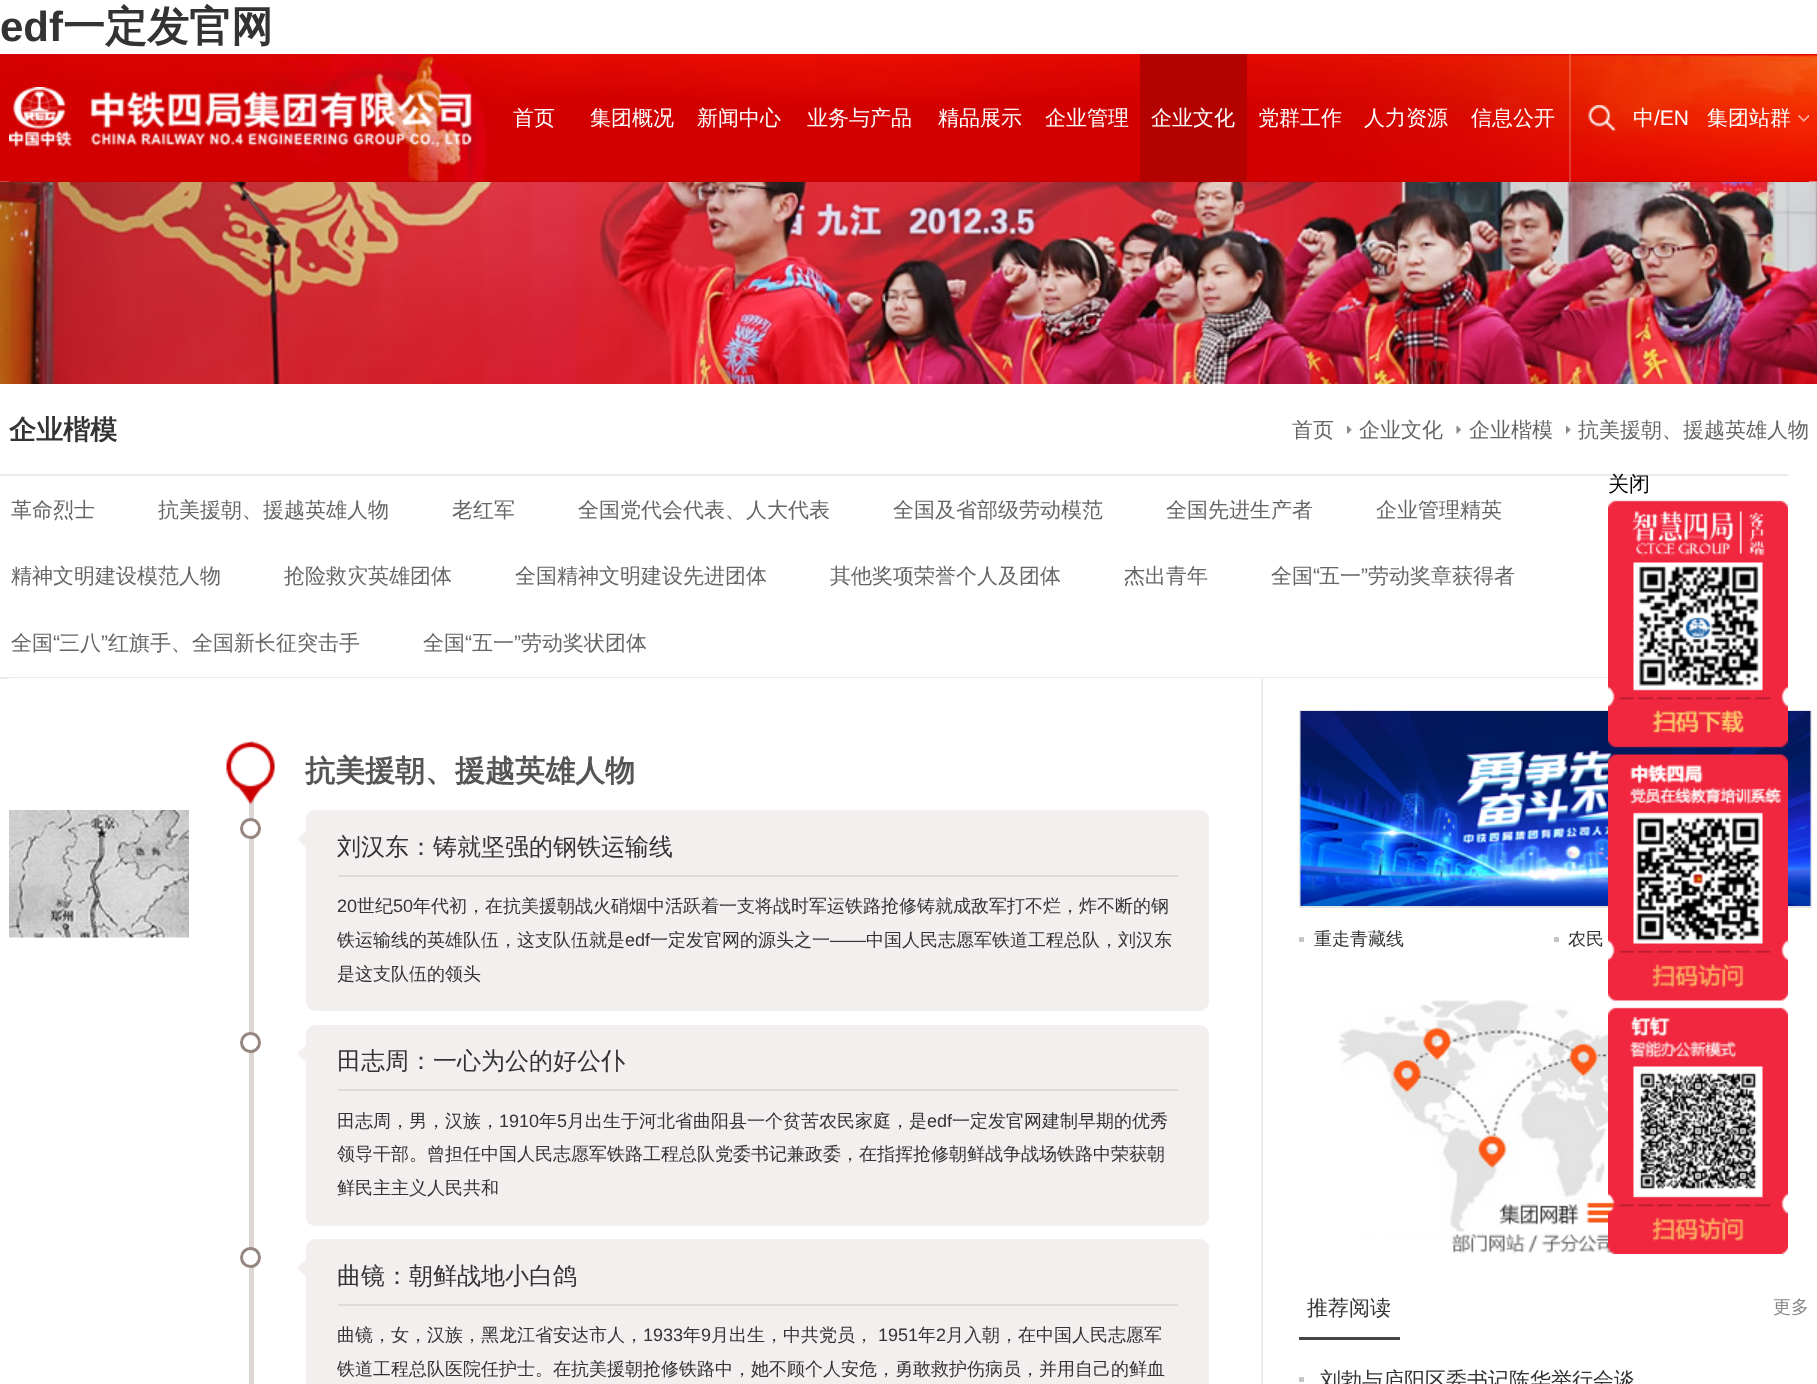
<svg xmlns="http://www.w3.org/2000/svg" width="1817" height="1384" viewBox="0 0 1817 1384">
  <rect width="100%" height="100%" fill="#fff"/>
  <image x="0" y="181" width="1817" height="203" href="img/1.png"/>
  <path d="M9 181h1800v1H9z" fill="#b40200"/>
  <image x="0" y="54" width="1817" height="128" href="img/2.png"/>
  <image x="9" y="87" width="463" height="60" href="img/3.png"/>
  <path d="M1140 54h107v128H1140z" fill="#b40200"/>
  <path d="M1569 54h2v128H1569z" fill="#ffffff33"/>
  <image x="1588" y="105" width="28" height="27" href="img/4.png"/>
  <image x="1798" y="115" width="11" height="7" href="img/5.png"/>
  <image x="1347" y="426" width="5" height="8" href="img/6.png"/>
  <image x="1456" y="426" width="5" height="8" href="img/7.png"/>
  <image x="1566" y="426" width="5" height="8" href="img/8.png"/>
  <path d="M0 474h1788v2H0z" fill="#eaeaea"/>
  <path d="M0 677h1608v2H0z" fill="#eaeaea"/>
  <path d="M1300 711h511v196H1300z" fill="none" stroke="#e5e5e5" stroke-width="2"/>
  <image x="1300" y="711" width="511" height="195" href="img/15.png"/>
  <image x="1338" y="1000" width="437" height="253" href="img/16.png"/>
  <image x="1608" y="500" width="180" height="754" href="img/9.png"/>
  <path d="M9 678h1599v1H9z" fill="#fff"/>
  <image x="1261" y="678" width="2" height="706" href="img/10.png"/>
  <path d="M249 741h5v643H249z" fill="#ded6d4"/>
  <image x="226" y="742" width="49" height="62" href="img/11.png"/>
  <image x="9" y="810" width="180" height="128" href="img/12.png"/>
  <circle cx="250.5" cy="828.5" r="9" fill="#fff" stroke="#95867f" stroke-width="3"/>
  <rect x="306" y="810" width="903" height="201" rx="9" fill="#f2efee"/>
  <image x="297" y="831" width="9" height="17" href="img/13.png"/>
  <path d="M338 875h840v2H338z" fill="#e1dad9"/>
  <circle cx="250.5" cy="1042.5" r="9" fill="#fff" stroke="#95867f" stroke-width="3"/>
  <rect x="306" y="1025" width="903" height="201" rx="9" fill="#f2efee"/>
  <image x="297" y="1045" width="9" height="17" href="img/14.png"/>
  <path d="M338 1089h840v2H338z" fill="#e1dad9"/>
  <circle cx="250.5" cy="1257.5" r="9" fill="#fff" stroke="#95867f" stroke-width="3"/>
  <rect x="306" y="1239" width="903" height="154" rx="9" fill="#f2efee"/>
  <image x="297" y="1260" width="9" height="17" href="img/13.png"/>
  <path d="M338 1304h840v2H338z" fill="#e1dad9"/>
  <path d="M1299 937h5v5H1299z" fill="#c5c5c5"/>
  <path d="M1554 937h5v5H1554z" fill="#c5c5c5"/>
  <path d="M1299 1337h101v3H1299z" fill="#444"/>
  <path d="M1299 1377h5v5H1299z" fill="#c5c5c5"/>
  <text x="0" y="41" font-family="Liberation Sans" font-size="42" font-weight="bold" fill="#333">edf</text>
  <text x="63" y="41" font-family="WenQuanYi Zen Hei" font-size="42" font-weight="bold" fill="#333">一定发官网</text>
  <g font-family="WenQuanYi Zen Hei" font-size="21" font-weight="500" fill="#fff">
    <text x="513" y="125">首页</text>
    <text x="590" y="125">集团概况</text>
    <text x="697" y="125">新闻中心</text>
    <text x="807" y="125">业务与产品</text>
    <text x="938" y="125">精品展示</text>
    <text x="1045" y="125">企业管理</text>
    <text x="1151" y="125">企业文化</text>
    <text x="1258" y="125">党群工作</text>
    <text x="1364" y="125">人力资源</text>
    <text x="1471" y="125">信息公开</text>
    <text x="1633" y="125">中</text>
  </g>
  <text x="1654" y="125" font-family="Liberation Sans" font-size="21" fill="#fff">/EN</text>
  <text x="1707" y="125" font-family="WenQuanYi Zen Hei" font-size="21" font-weight="500" fill="#fff">集团站群</text>
  <text x="9" y="439" font-family="WenQuanYi Zen Hei" font-size="27" font-weight="bold" fill="#333">企业楷模</text>
  <g font-family="WenQuanYi Zen Hei" font-size="21" font-weight="500" fill="#666">
    <text x="1292" y="437">首页</text>
    <text x="1359" y="437">企业文化</text>
    <text x="1469" y="437">企业楷模</text>
    <text x="1578" y="437">抗美援朝、援越英雄人物</text>
    <text x="11" y="517">革命烈士</text>
    <text x="158" y="517">抗美援朝、援越英雄人物</text>
    <text x="452" y="517">老红军</text>
    <text x="578" y="517">全国党代会代表、人大代表</text>
    <text x="893" y="517">全国及省部级劳动模范</text>
    <text x="1166" y="517">全国先进生产者</text>
    <text x="1376" y="517">企业管理精英</text>
    <text x="11" y="583">精神文明建设模范人物</text>
    <text x="284" y="583">抢险救灾英雄团体</text>
    <text x="515" y="583">全国精神文明建设先进团体</text>
    <text x="830" y="583">其他奖项荣誉个人及团体</text>
    <text x="1124" y="583">杰出青年</text>
    <text x="1271" y="583">全国</text>
  </g>
  <text x="1313" y="583" font-family="Liberation Sans" font-size="21" fill="#666">“</text>
  <text x="1319" y="583" font-family="WenQuanYi Zen Hei" font-size="21" font-weight="500" fill="#666">五一</text>
  <text x="1361" y="583" font-family="Liberation Sans" font-size="21" fill="#666">”</text>
  <g font-family="WenQuanYi Zen Hei" font-size="21" font-weight="500" fill="#666">
    <text x="1368" y="583">劳动奖章获得者</text>
    <text x="11" y="650">全国</text>
  </g>
  <text x="53" y="650" font-family="Liberation Sans" font-size="21" fill="#666">“</text>
  <text x="59" y="650" font-family="WenQuanYi Zen Hei" font-size="21" font-weight="500" fill="#666">三八</text>
  <text x="101" y="650" font-family="Liberation Sans" font-size="21" fill="#666">”</text>
  <g font-family="WenQuanYi Zen Hei" font-size="21" font-weight="500" fill="#666">
    <text x="108" y="650">红旗手、全国新长征突击手</text>
    <text x="423" y="650">全国</text>
  </g>
  <text x="465" y="650" font-family="Liberation Sans" font-size="21" fill="#666">“</text>
  <text x="472" y="650" font-family="WenQuanYi Zen Hei" font-size="21" font-weight="500" fill="#666">五一</text>
  <text x="514" y="650" font-family="Liberation Sans" font-size="21" fill="#666">”</text>
  <text x="521" y="650" font-family="WenQuanYi Zen Hei" font-size="21" font-weight="500" fill="#666">劳动奖状团体</text>
  <text x="1608" y="491" font-family="WenQuanYi Zen Hei" font-size="21" font-weight="500" fill="#000">关闭</text>
  <text x="305" y="781" font-family="WenQuanYi Zen Hei" font-size="30" font-weight="bold" fill="#555">抗美援朝、援越英雄人物</text>
  <text x="337" y="855" font-family="WenQuanYi Zen Hei" font-size="24" font-weight="500" fill="#333">刘汉东：铸就坚强的钢铁运输线</text>
  <text x="337" y="912" font-family="Liberation Sans" font-size="18" fill="#333">20</text>
  <text x="357" y="912" font-family="WenQuanYi Zen Hei" font-size="18" font-weight="500" fill="#333">世纪</text>
  <text x="393" y="912" font-family="Liberation Sans" font-size="18" fill="#333">50</text>
  <g font-family="WenQuanYi Zen Hei" font-size="18" font-weight="500" fill="#333">
    <text x="413" y="912">年代初，在抗美援朝战火硝烟中活跃着一支将战时军运铁路抢修铸就成敌军打不烂，炸不断的钢</text>
    <text x="337" y="946">铁运输线的英雄队伍，这支队伍就是</text>
  </g>
  <text x="625" y="946" font-family="Liberation Sans" font-size="18" fill="#333">edf</text>
  <text x="650" y="946" font-family="WenQuanYi Zen Hei" font-size="18" font-weight="500" fill="#333">一定发官网的源头之一</text>
  <text x="830" y="946" font-family="Liberation Sans" font-size="18" fill="#333">——</text>
  <g font-family="WenQuanYi Zen Hei" font-size="18" font-weight="500" fill="#333">
    <text x="866" y="946">中国人民志愿军铁道工程总队，刘汉东</text>
    <text x="337" y="980">是这支队伍的领头</text>
  </g>
  <text x="337" y="1069" font-family="WenQuanYi Zen Hei" font-size="24" font-weight="500" fill="#333">田志周：一心为公的好公仆</text>
  <text x="337" y="1127" font-family="WenQuanYi Zen Hei" font-size="18" font-weight="500" fill="#333">田志周，男，汉族，</text>
  <text x="499" y="1127" font-family="Liberation Sans" font-size="18" fill="#333">1910</text>
  <text x="539" y="1127" font-family="WenQuanYi Zen Hei" font-size="18" font-weight="500" fill="#333">年</text>
  <text x="557" y="1127" font-family="Liberation Sans" font-size="18" fill="#333">5</text>
  <text x="567" y="1127" font-family="WenQuanYi Zen Hei" font-size="18" font-weight="500" fill="#333">月出生于河北省曲阳县一个贫苦农民家庭，是</text>
  <text x="927" y="1127" font-family="Liberation Sans" font-size="18" fill="#333">edf</text>
  <g font-family="WenQuanYi Zen Hei" font-size="18" font-weight="500" fill="#333">
    <text x="952" y="1127">一定发官网建制早期的优秀</text>
    <text x="337" y="1160">领导干部。曾担任中国人民志愿军铁路工程总队党委书记兼政委，在指挥抢修朝鲜战争战场铁路中荣获朝</text>
    <text x="337" y="1194">鲜民主主义人民共和</text>
  </g>
  <text x="337" y="1284" font-family="WenQuanYi Zen Hei" font-size="24" font-weight="500" fill="#333">曲镜：朝鲜战地小白鸽</text>
  <text x="337" y="1341" font-family="WenQuanYi Zen Hei" font-size="18" font-weight="500" fill="#333">曲镜，女，汉族，黑龙江省安达市人，</text>
  <text x="643" y="1341" font-family="Liberation Sans" font-size="18" fill="#333">1933</text>
  <text x="683" y="1341" font-family="WenQuanYi Zen Hei" font-size="18" font-weight="500" fill="#333">年</text>
  <text x="701" y="1341" font-family="Liberation Sans" font-size="18" fill="#333">9</text>
  <text x="711" y="1341" font-family="WenQuanYi Zen Hei" font-size="18" font-weight="500" fill="#333">月出生，中共党员，</text>
  <text x="878" y="1341" font-family="Liberation Sans" font-size="18" fill="#333">1951</text>
  <text x="918" y="1341" font-family="WenQuanYi Zen Hei" font-size="18" font-weight="500" fill="#333">年</text>
  <text x="936" y="1341" font-family="Liberation Sans" font-size="18" fill="#333">2</text>
  <g font-family="WenQuanYi Zen Hei" font-size="18" font-weight="500" fill="#333">
    <text x="946" y="1341">月入朝，在中国人民志愿军</text>
    <text x="337" y="1375">铁道工程总队医院任护士。在抗美援朝抢修铁路中，她不顾个人安危，勇敢救护伤病员，并用自己的鲜血</text>
    <text x="1314" y="945">重走青藏线</text>
    <text x="1568" y="945">农民</text>
  </g>
  <text x="1307" y="1315" font-family="WenQuanYi Zen Hei" font-size="21" font-weight="500" fill="#333">推荐阅读</text>
  <text x="1773" y="1313" font-family="WenQuanYi Zen Hei" font-size="18" font-weight="500" fill="#888">更多</text>
  <text x="1320" y="1387" font-family="WenQuanYi Zen Hei" font-size="21" font-weight="500" fill="#333">刘勃与庐阳区委书记陈华举行会谈</text>
</svg>
